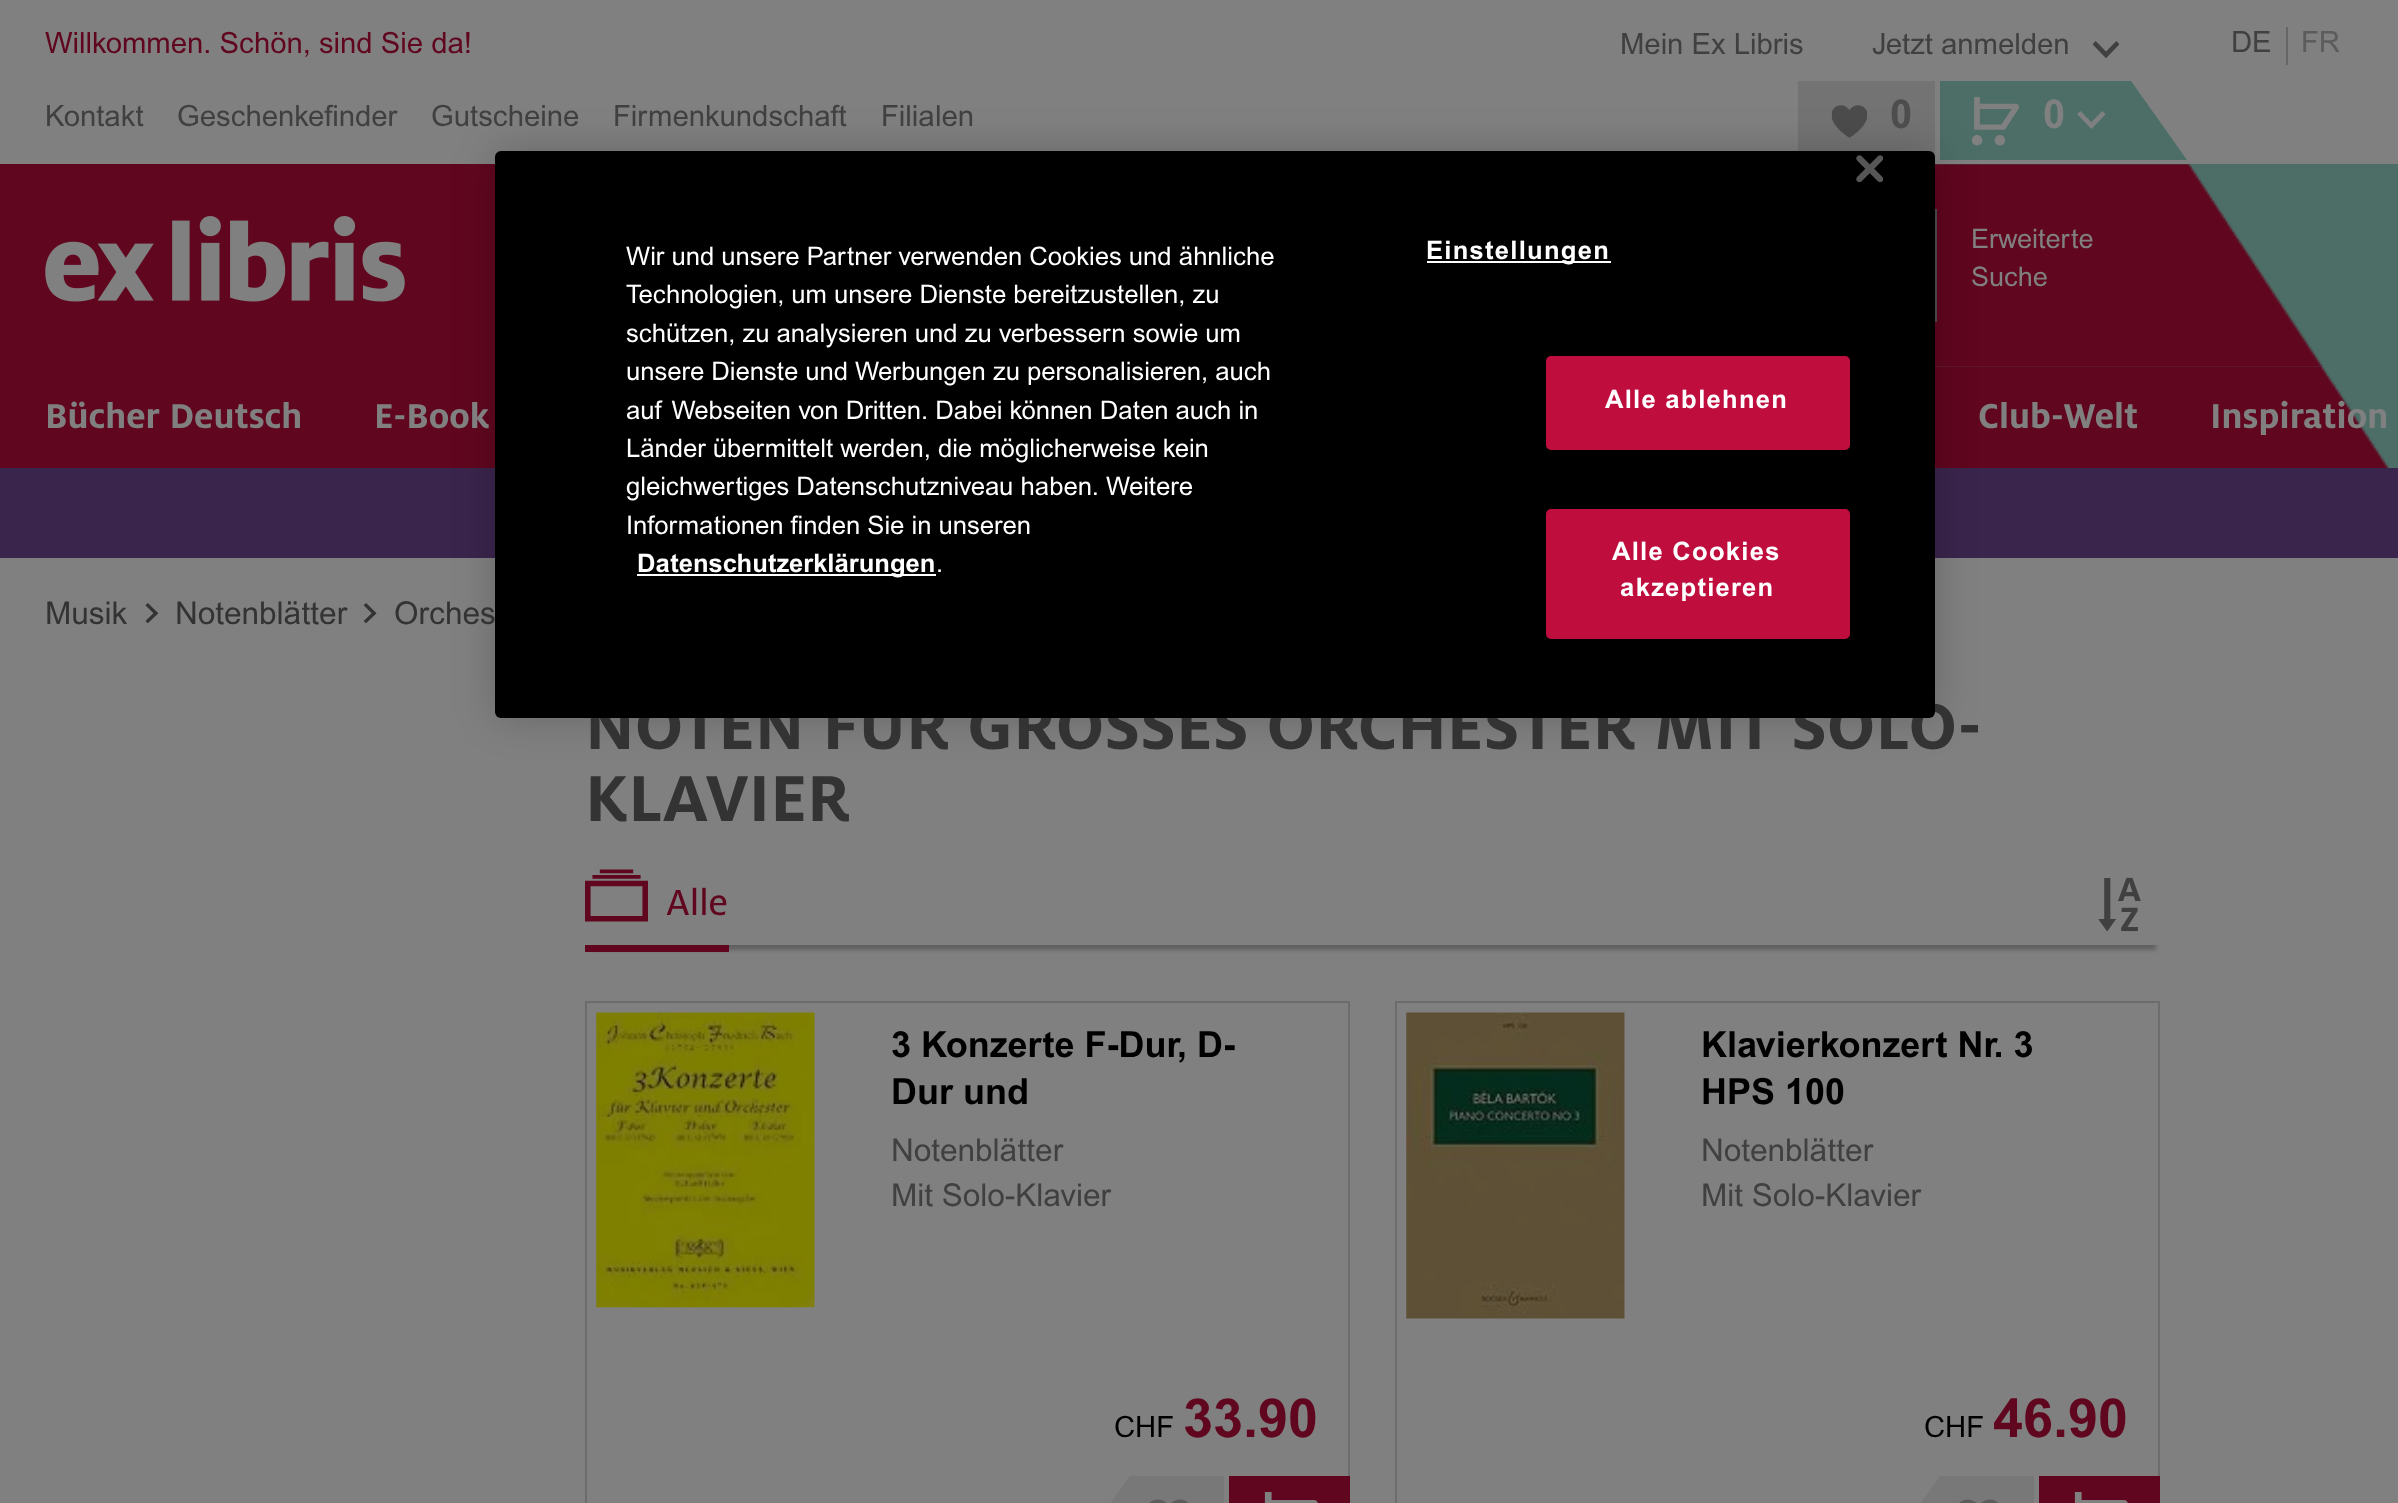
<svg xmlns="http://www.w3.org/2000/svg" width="2398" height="1503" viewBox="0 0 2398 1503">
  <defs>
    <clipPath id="clip1"><path d="M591 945h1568v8H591z"/></clipPath>
  </defs>
  <rect width="100%" height="100%" fill="#808080"/>
  <image x="2092" y="41" width="28" height="17" href="img/1.png"/>
  <path d="M2286 27h2v38H2286z" fill="#666"/>
  <path d="M1798 81h137v76H1798z" fill="#737373"/>
  <image x="1831" y="105" width="37" height="33" href="img/2.png"/>
  <path d="M1940 81h247v79H1940z" fill="#4c6e67"/>
  <image x="1971" y="97" width="48" height="49" href="img/3.png"/>
  <image x="2077" y="111" width="29" height="18" href="img/4.png"/>
  <path d="M2187 81V160L2131 81Z" fill="#808080"/>
  <path d="M0 164h495v304H0z" fill="#60071f"/>
  <path d="M1935 164h463v304H1935z" fill="#4c6e67"/>
  <image x="1935" y="164" width="388" height="203" href="img/5.png"/>
  <image x="45" y="216" width="360" height="86" href="img/6.png"/>
  <path d="M1935 209h2v113H1935z" fill="#4d4d4d"/>
  <image x="1935" y="366" width="455" height="102" href="img/7.png"/>
  <path d="M0 468h2398v90H0z" fill="#3a254c"/>
  <image x="145" y="603" width="14" height="20" href="img/8.png"/>
  <image x="363" y="603" width="14" height="20" href="img/9.png"/>
  <g clip-path="url(#clip1)">
    <path d="M590 878h1566v72H590z" fill="#00000040" filter="blur(2px)"/>
  </g>
  <image x="585" y="869" width="63" height="53" href="img/10.png"/>
  <path d="M585 945h144v7H585z" fill="#60071f"/>
  <image x="2098" y="877" width="43" height="55" href="img/11.png"/>
  <path d="M586 1002h763v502H586z" fill="none" stroke="#6c6c6c" stroke-width="2"/>
  <image x="596" y="1012" width="219" height="296" href="img/12.png"/>
  <path d="M1110 1476h114v27H1110z" fill="#787878"/>
  <path d="M1066 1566V1476H1130Z" fill="#808080"/>
  <image x="1149" y="1499" width="40" height="4" href="img/13.png"/>
  <path d="M1229 1476h121v27H1229z" fill="#60071f"/>
  <image x="1264" y="1492" width="54" height="11" href="img/14.png"/>
  <path d="M1396 1002h763v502H1396z" fill="none" stroke="#6c6c6c" stroke-width="2"/>
  <image x="1406" y="1012" width="219" height="307" href="img/15.png"/>
  <path d="M1920 1476h114v27H1920z" fill="#787878"/>
  <path d="M1876 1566V1476H1940Z" fill="#808080"/>
  <image x="1959" y="1499" width="40" height="4" href="img/13.png"/>
  <path d="M2039 1476h121v27H2039z" fill="#60071f"/>
  <image x="2074" y="1492" width="54" height="11" href="img/14.png"/>
  <rect x="495" y="151" width="1440" height="567" rx="6" fill="#00000033" filter="blur(20px)"/>
  <text x="45" y="53" font-family="Arial" font-size="29.25" fill="#60071f">Willkommen. Schön, sind Sie da!</text>
  <g font-family="Arial" font-size="29.25" fill="#404040">
    <text x="1620" y="54">Mein Ex Libris</text>
    <text x="1872" y="54">Jetzt anmelden</text>
    <text x="2231" y="52">DE</text>
  </g>
  <text x="2301" y="52" font-family="Arial" font-size="29.25" fill="#5c5c5c">FR</text>
  <g font-family="Arial" font-size="29.25" fill="#404040">
    <text x="45" y="126">Kontakt</text>
    <text x="177" y="126">Geschenkefinder</text>
    <text x="431" y="126">Gutscheine</text>
    <text x="613" y="126">Firmenkundschaft</text>
    <text x="881" y="126">Filialen</text>
  </g>
  <text x="1890" y="128" font-family="Arial" font-size="40" font-weight="bold" fill="#4d4d4d">0</text>
  <text x="2043" y="128" font-family="Arial" font-size="40" font-weight="bold" fill="#808080">0</text>
  <g font-family="Arial" font-size="27" fill="#808080">
    <text x="1971" y="248">Erweiterte</text>
    <text x="1971" y="286">Suche</text>
  </g>
  <g font-family="'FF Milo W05'" font-size="38.25" font-weight="bold" fill="#808080">
    <text x="45" y="428">Bücher Deutsch</text>
    <text x="374" y="428">E-Book</text>
    <text x="1978" y="428">Club-Welt</text>
    <text x="2210" y="428">Inspiration</text>
  </g>
  <g font-family="Arial" font-size="31.5" fill="#333">
    <text x="45" y="624">Musik</text>
    <text x="175" y="624">Notenblätter</text>
    <text x="394" y="624">Orches</text>
  </g>
  <g font-family="'FF Milo W05'" font-size="72" font-weight="bold" fill="#333">
    <text x="585" y="749">NOTEN FÜR GROSSES ORCHESTER MIT SOLO-</text>
    <text x="585" y="821">KLAVIER</text>
  </g>
  <text x="666" y="915" font-family="'FF Milo W05'" font-size="40" fill="#60071f">Alle</text>
  <g font-family="Arial" font-size="36" font-weight="bold" fill="#000">
    <text x="891" y="1057">3 Konzerte F-Dur, D-</text>
    <text x="891" y="1104">Dur und</text>
  </g>
  <g font-family="Arial" font-size="31.5" fill="#404040">
    <text x="891" y="1161">Notenblätter</text>
    <text x="891" y="1206">Mit Solo-Klavier</text>
  </g>
  <text x="1114" y="1437" font-family="Arial" font-size="29.25" fill="#000">CHF</text>
  <text x="1183" y="1437" font-family="Arial" font-size="54" font-weight="bold" fill="#60071f">33.90</text>
  <g font-family="Arial" font-size="36" font-weight="bold" fill="#000">
    <text x="1701" y="1057">Klavierkonzert Nr. 3</text>
    <text x="1701" y="1104">HPS 100</text>
  </g>
  <g font-family="Arial" font-size="31.5" fill="#404040">
    <text x="1701" y="1161">Notenblätter</text>
    <text x="1701" y="1206">Mit Solo-Klavier</text>
  </g>
  <text x="1924" y="1437" font-family="Arial" font-size="29.25" fill="#000">CHF</text>
  <text x="1993" y="1437" font-family="Arial" font-size="54" font-weight="bold" fill="#60071f">46.90</text>
  <rect x="495" y="151" width="1440" height="567" rx="6" fill="#000"/>
  <image x="1856" y="155" width="27" height="27" href="img/16.png"/>
  <g font-family="Arial" font-size="25.6" fill="#fff">
    <text x="626" y="265">Wir und unsere Partner verwenden Cookies und ähnliche</text>
    <text x="626" y="303">Technologien, um unsere Dienste bereitzustellen, zu</text>
    <text x="626" y="342">schützen, zu analysieren und zu verbessern sowie um</text>
    <text x="626" y="380">unsere Dienste und Werbungen zu personalisieren, auch</text>
    <text x="626" y="419">auf Webseiten von Dritten. Dabei können Daten auch in</text>
    <text x="626" y="457">Länder übermittelt werden, die möglicherweise kein</text>
    <text x="626" y="495">gleichwertiges Datenschutzniveau haben. Weitere</text>
    <text x="626" y="534">Informationen finden Sie in unseren</text>
  </g>
  <path d="M637 574h299v2H637z" fill="#fff"/>
  <text x="637" y="572" font-family="Arial" font-size="25.6" font-weight="bold" fill="#fff">Datenschutzerklärungen</text>
  <text x="936" y="572" font-family="Arial" font-size="25.6" fill="#fff">.</text>
  <path d="M1427 261h184v2H1427z" fill="#fff"/>
  <text x="1426" y="259" font-family="Arial" font-size="25.6" font-weight="bold" letter-spacing="1.25" fill="#fff">Einstellungen</text>
  <rect x="1547" y="357" width="302" height="92" rx="4" fill="#bf0d3e" stroke="#bf0d3e" stroke-width="2"/>
  <text x="1605" y="408" font-family="Arial" font-size="25.6" font-weight="bold" letter-spacing="1.25" fill="#fff">Alle ablehnen</text>
  <rect x="1547" y="510" width="302" height="128" rx="4" fill="#bf0d3e" stroke="#bf0d3e" stroke-width="2"/>
  <g font-family="Arial" font-size="25.6" font-weight="bold" letter-spacing="1.25" fill="#fff">
    <text x="1612" y="560">Alle Cookies</text>
    <text x="1620" y="596">akzeptieren</text>
  </g>
</svg>
